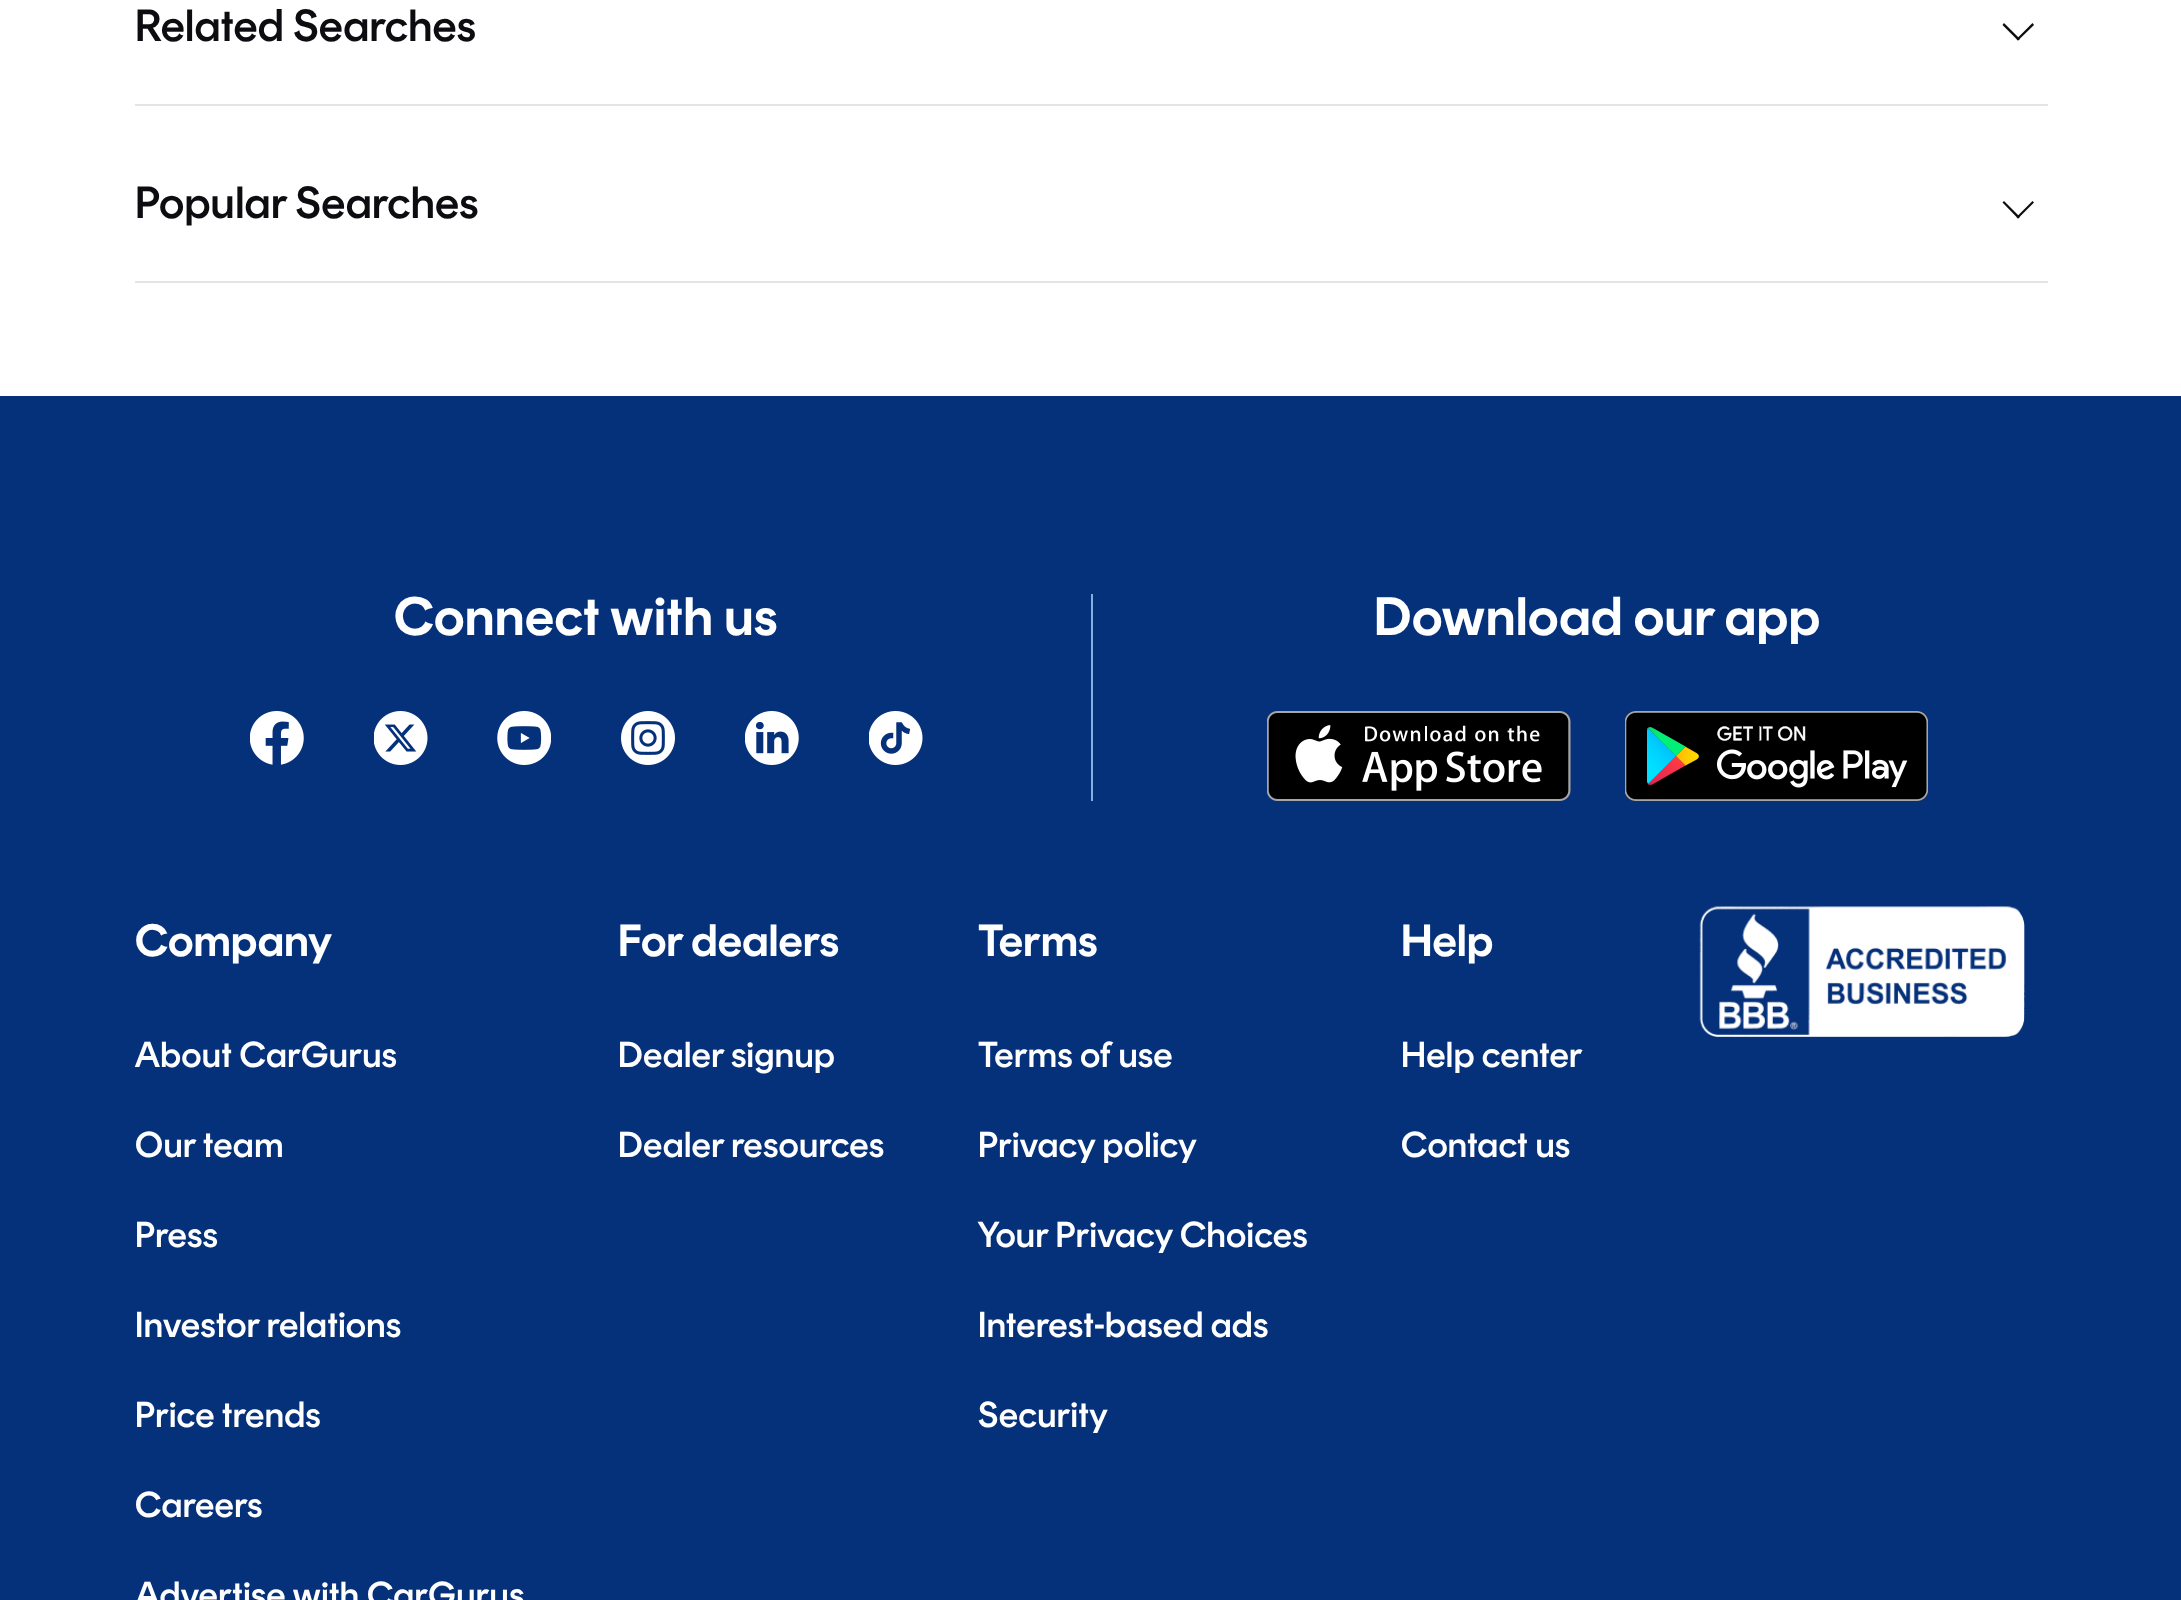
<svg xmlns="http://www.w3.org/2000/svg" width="2181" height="1600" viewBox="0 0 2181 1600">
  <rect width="100%" height="100%" fill="#fff"/>
  <path d="M135 104h1913v2H135z" fill="#e4e4e5"/>
  <path d="M2034 25L2018 40.5L2016.5 39L2032.5 23Z" fill="#0c0c11"/>
  <path d="M2020 39L2018 40.5L2002.5 25L2004 23Z" fill="#0c0c11"/>
  <path d="M135 281h1913v2H135z" fill="#e4e4e5"/>
  <path d="M2034 202.5L2018 218.5L2016.5 217L2032.5 201Z" fill="#0c0c11"/>
  <path d="M2020 217L2018 218.5L2002.5 202.5L2004 201Z" fill="#0c0c11"/>
  <path d="M0 396h2181v1204H0z" fill="#05317b"/>
  <image x="250" y="711" width="54" height="54" href="img/1.png"/>
  <image x="374" y="711" width="54" height="54" href="img/2.png"/>
  <image x="497" y="711" width="54" height="54" href="img/3.png"/>
  <image x="621" y="711" width="54" height="54" href="img/4.png"/>
  <image x="745" y="711" width="54" height="54" href="img/5.png"/>
  <image x="869" y="711" width="54" height="54" href="img/6.png"/>
  <path d="M1091 594h2v207H1091z" fill="#7db0e3"/>
  <image x="1267" y="711" width="304" height="90" href="img/7.png"/>
  <image x="1625" y="711" width="303" height="90" href="img/8.png"/>
  <image x="1699" y="906" width="326" height="131" href="img/9.png"/>
  <g font-family="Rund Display" font-size="45" font-weight="500" letter-spacing="0.4" fill="#0c0c11">
    <text x="135" y="41">Related Searches</text>
    <text x="135" y="218">Popular Searches</text>
  </g>
  <g font-family="Rund Display" font-size="54" font-weight="600" letter-spacing="0.7" fill="#fff">
    <text x="394" y="635">Connect with us</text>
    <text x="1374" y="635">Download our app</text>
  </g>
  <text x="135" y="956" font-family="Rund Display" font-size="45" font-weight="600" letter-spacing="0.4" fill="#fff">Company</text>
  <g font-family="Rund Display" font-size="36" font-weight="500" letter-spacing="0.45" fill="#fff">
    <text x="135" y="1067">About CarGurus</text>
    <text x="135" y="1157">Our team</text>
    <text x="135" y="1247">Press</text>
    <text x="135" y="1337">Investor relations</text>
    <text x="135" y="1427">Price trends</text>
    <text x="135" y="1517">Careers</text>
    <text x="135" y="1607">Advertise with CarGurus</text>
  </g>
  <text x="618" y="956" font-family="Rund Display" font-size="45" font-weight="600" letter-spacing="0.4" fill="#fff">For dealers</text>
  <g font-family="Rund Display" font-size="36" font-weight="500" letter-spacing="0.45" fill="#fff">
    <text x="618" y="1067">Dealer signup</text>
    <text x="618" y="1157">Dealer resources</text>
  </g>
  <text x="978" y="956" font-family="Rund Display" font-size="45" font-weight="600" letter-spacing="0.4" fill="#fff">Terms</text>
  <g font-family="Rund Display" font-size="36" font-weight="500" letter-spacing="0.45" fill="#fff">
    <text x="978" y="1067">Terms of use</text>
    <text x="978" y="1157">Privacy policy</text>
    <text x="978" y="1247">Your Privacy Choices</text>
    <text x="978" y="1337">Interest-based ads</text>
    <text x="978" y="1427">Security</text>
  </g>
  <text x="1401" y="956" font-family="Rund Display" font-size="45" font-weight="600" letter-spacing="0.4" fill="#fff">Help</text>
  <g font-family="Rund Display" font-size="36" font-weight="500" letter-spacing="0.45" fill="#fff">
    <text x="1401" y="1067">Help center</text>
    <text x="1401" y="1157">Contact us</text>
  </g>
</svg>
